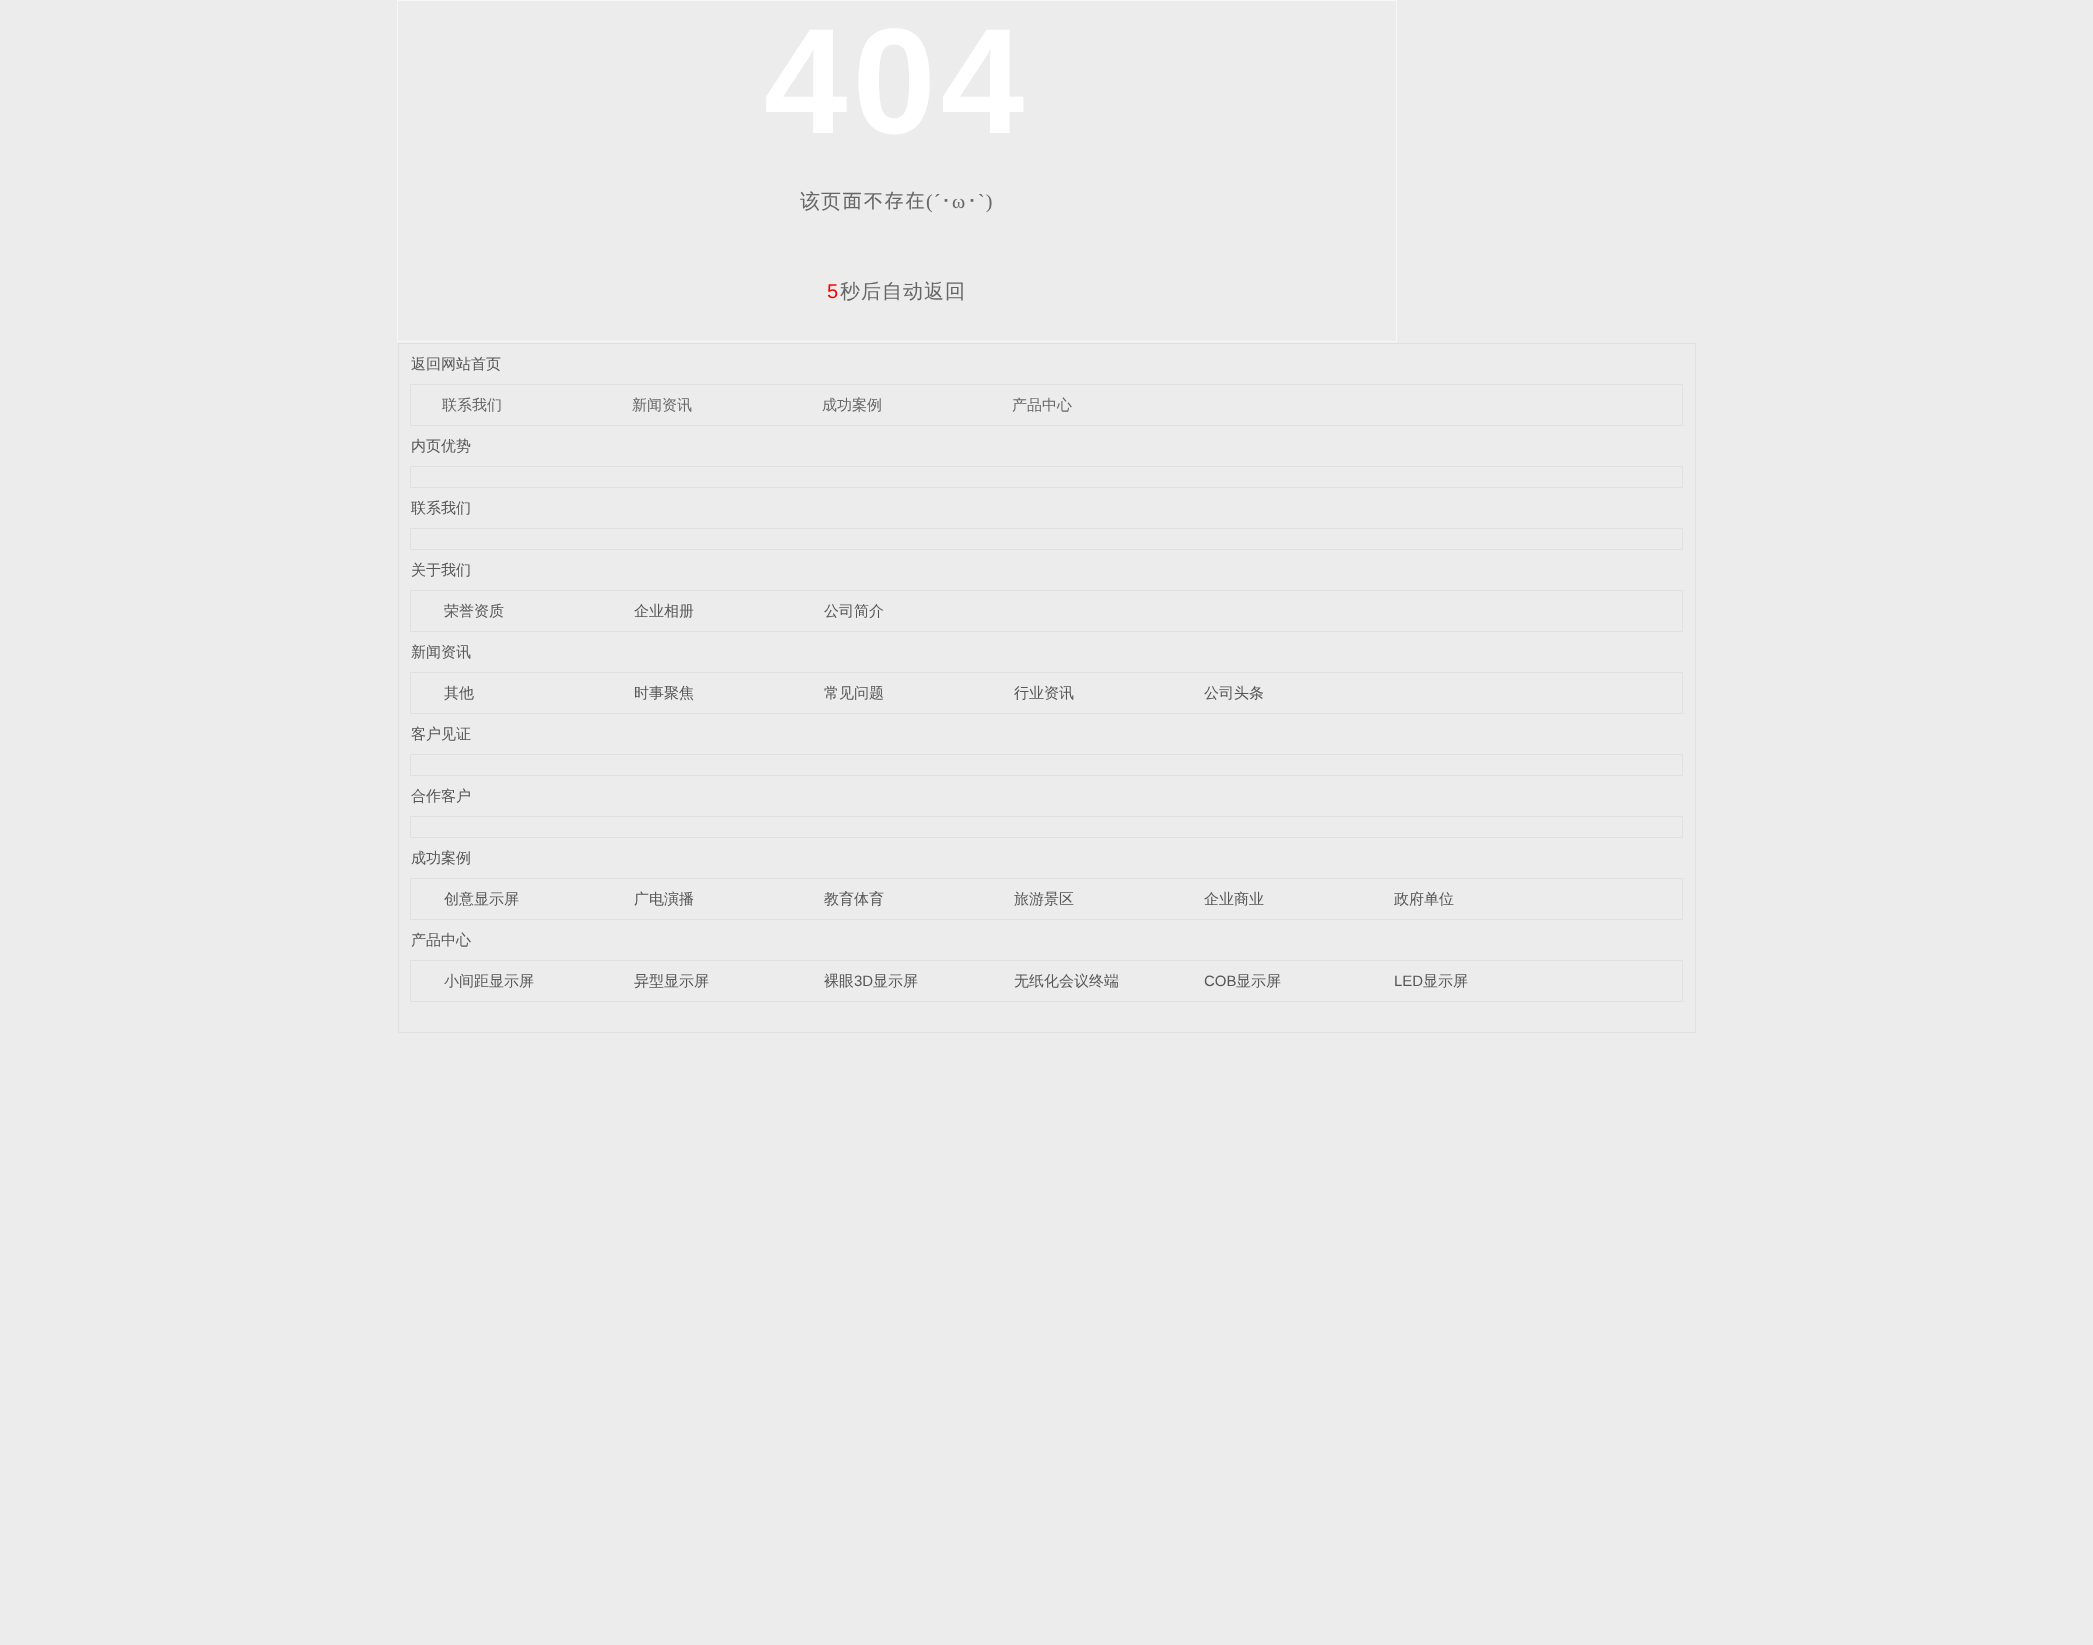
<svg xmlns="http://www.w3.org/2000/svg" width="2093" height="1645" viewBox="0 0 2093 1645">
  <rect width="100%" height="100%" fill="#ececec"/>
  <path d="M397.5 0.5h999v341H397.5z" fill="none" stroke="#f7f7f7"/>
  <path d="M398.5 343.5h1297v689H398.5z" fill="none" stroke="#e0e0e0"/>
  <path d="M410.5 384.5h1272v41H410.5z" fill="none" stroke="#e0e0e0"/>
  <path d="M410.5 466.5h1272v21H410.5z" fill="none" stroke="#e0e0e0"/>
  <path d="M410.5 528.5h1272v21H410.5z" fill="none" stroke="#e0e0e0"/>
  <path d="M410.5 590.5h1272v41H410.5z" fill="none" stroke="#e0e0e0"/>
  <path d="M410.5 672.5h1272v41H410.5z" fill="none" stroke="#e0e0e0"/>
  <path d="M410.5 754.5h1272v21H410.5z" fill="none" stroke="#e0e0e0"/>
  <path d="M410.5 816.5h1272v21H410.5z" fill="none" stroke="#e0e0e0"/>
  <path d="M410.5 878.5h1272v41H410.5z" fill="none" stroke="#e0e0e0"/>
  <path d="M410.5 960.5h1272v41H410.5z" fill="none" stroke="#e0e0e0"/>
  <text x="764" y="133" font-family="Liberation Sans" font-size="150" font-weight="bold" letter-spacing="5" fill="#fff">404</text>
  <text x="800" y="208" font-family="WenQuanYi Zen Hei" font-size="20" font-weight="500" letter-spacing="1" fill="#666">该页</text>
  <text x="842" y="208" font-family="IPAGothic" font-size="20" letter-spacing="1" fill="#666">面不存在</text>
  <text x="926" y="208" font-family="Liberation Serif" font-size="20" letter-spacing="1" fill="#666">(´</text>
  <text x="941" y="208" font-family="IPAGothic" font-size="20" letter-spacing="1" fill="#666">･</text>
  <text x="952" y="208" font-family="Liberation Serif" font-size="20" letter-spacing="1" fill="#666">ω</text>
  <text x="967" y="208" font-family="IPAGothic" font-size="20" letter-spacing="1" fill="#666">･</text>
  <text x="978" y="208" font-family="Liberation Serif" font-size="20" letter-spacing="1" fill="#666">`)</text>
  <text x="827" y="298" font-family="Liberation Sans" font-size="20" letter-spacing="1" fill="#f00">5</text>
  <text x="840" y="298" font-family="WenQuanYi Zen Hei" font-size="20" font-weight="500" letter-spacing="1" fill="#666">秒后自动返回</text>
  <text x="411" y="369" font-family="WenQuanYi Zen Hei" font-size="15" font-weight="500" fill="#565656">返回网站首页</text>
  <g font-family="WenQuanYi Zen Hei" font-size="15" font-weight="500" fill="#666">
    <text x="442" y="410">联系我们</text>
    <text x="632" y="410">新闻资讯</text>
    <text x="822" y="410">成功案例</text>
    <text x="1012" y="410">产品中心</text>
  </g>
  <g font-family="WenQuanYi Zen Hei" font-size="15" font-weight="500" fill="#565656">
    <text x="411" y="451">内页优势</text>
    <text x="411" y="513">联系我们</text>
    <text x="411" y="575">关于我们</text>
    <text x="444" y="616">荣誉资质</text>
    <text x="634" y="616">企业相册</text>
    <text x="824" y="616">公司简介</text>
    <text x="411" y="657">新闻资讯</text>
    <text x="444" y="698">其他</text>
    <text x="634" y="698">时事聚焦</text>
    <text x="824" y="698">常见问题</text>
    <text x="1014" y="698">行业资讯</text>
    <text x="1204" y="698">公司头条</text>
    <text x="411" y="739">客户见证</text>
    <text x="411" y="801">合作客户</text>
    <text x="411" y="863">成功案例</text>
    <text x="444" y="904">创意显示屏</text>
    <text x="634" y="904">广电演播</text>
    <text x="824" y="904">教育体育</text>
    <text x="1014" y="904">旅游景区</text>
    <text x="1204" y="904">企业商业</text>
    <text x="1394" y="904">政府单位</text>
    <text x="411" y="945">产品中心</text>
    <text x="444" y="986">小间距显示屏</text>
    <text x="634" y="986">异型显示屏</text>
    <text x="824" y="986">裸眼</text>
  </g>
  <text x="854" y="986" font-family="Liberation Sans" font-size="15" fill="#565656">3D</text>
  <g font-family="WenQuanYi Zen Hei" font-size="15" font-weight="500" fill="#565656">
    <text x="873" y="986">显示屏</text>
    <text x="1014" y="986">无纸化会议终端</text>
  </g>
  <text x="1204" y="986" font-family="Liberation Sans" font-size="15" fill="#565656">COB</text>
  <text x="1236" y="986" font-family="WenQuanYi Zen Hei" font-size="15" font-weight="500" fill="#565656">显示屏</text>
  <text x="1394" y="986" font-family="Liberation Sans" font-size="15" fill="#565656">LED</text>
  <text x="1423" y="986" font-family="WenQuanYi Zen Hei" font-size="15" font-weight="500" fill="#565656">显示屏</text>
</svg>
